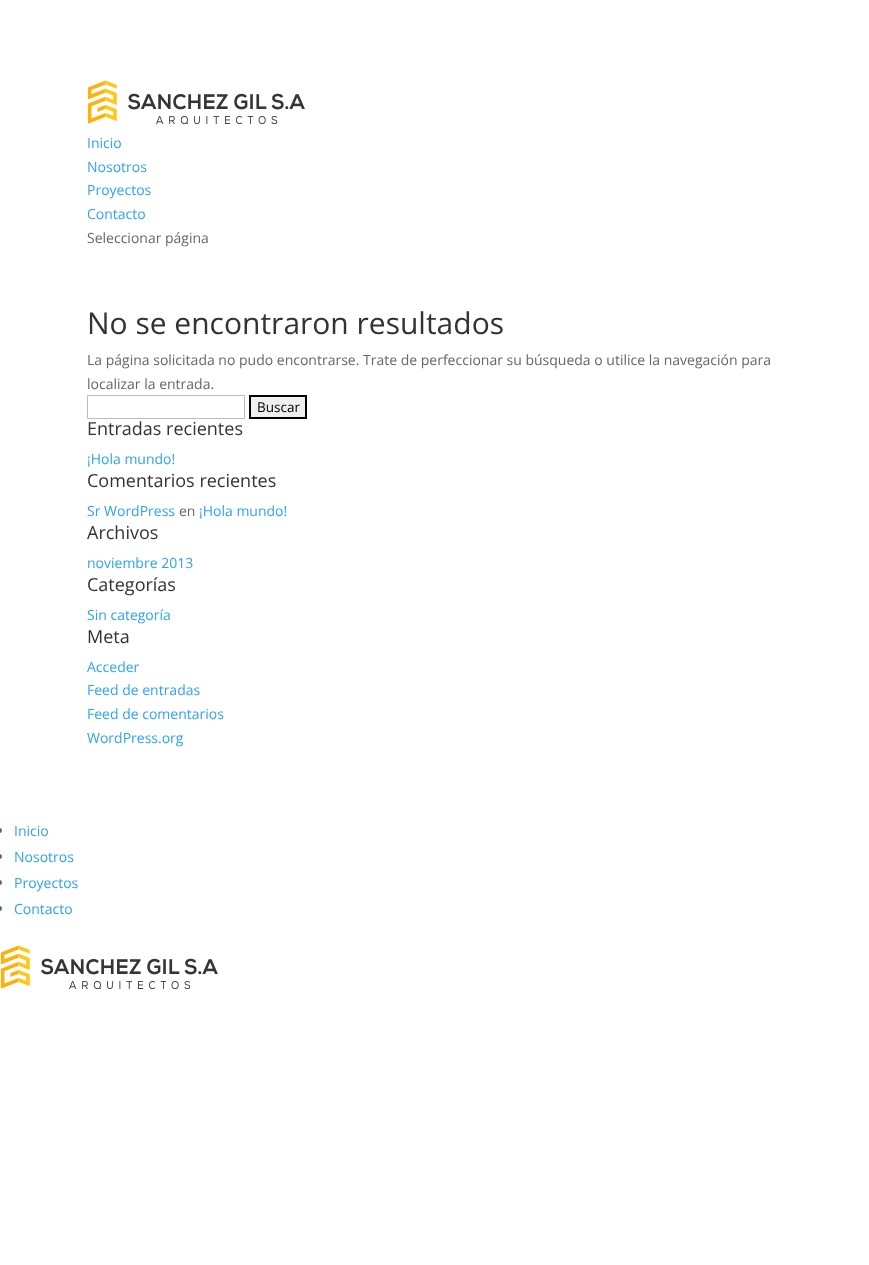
<svg xmlns="http://www.w3.org/2000/svg" width="869" height="1265" viewBox="0 0 869 1265">
  <rect width="100%" height="100%" fill="#fff"/>
  <image x="87" y="80" width="218" height="44" href="img/1.png"/>
  <path d="M87.5 395.5h157v23H87.5z" fill="none" stroke="#bbb"/>
  <path d="M250 396h56v22H250z" fill="#efefef" stroke="#000" stroke-width="2"/>
  <circle cx="-0.5" cy="830.5" r="2.5" fill="#666"/>
  <circle cx="-0.5" cy="856.5" r="2.5" fill="#666"/>
  <circle cx="-0.5" cy="882.5" r="2.5" fill="#666"/>
  <circle cx="-0.5" cy="908.5" r="2.5" fill="#666"/>
  <image x="0" y="945" width="218" height="44" href="img/1.png"/>
  <g font-family="Open Sans" font-size="14" fill="#2ea3f2">
    <text x="87" y="148">Inicio</text>
    <text x="87" y="172">Nosotros</text>
    <text x="87" y="195">Proyectos</text>
    <text x="87" y="219">Contacto</text>
  </g>
  <text x="87" y="243" font-family="Open Sans" font-size="14" fill="#666">Seleccionar página</text>
  <text x="87" y="334" font-family="Open Sans" font-size="30" fill="#333">No se encontraron resultados</text>
  <g font-family="Open Sans" font-size="14" fill="#666">
    <text x="87" y="365">La página solicitada no pudo encontrarse. Trate de perfeccionar su búsqueda o utilice la navegación para</text>
    <text x="87" y="389">localizar la entrada.</text>
  </g>
  <text x="257" y="412" font-family="Open Sans" font-size="13.5" fill="#000">Buscar</text>
  <text x="87" y="435" font-family="Open Sans" font-size="18" fill="#333">Entradas recientes</text>
  <text x="87" y="464" font-family="Open Sans" font-size="14" fill="#2ea3f2">¡Hola mundo!</text>
  <text x="87" y="487" font-family="Open Sans" font-size="18" fill="#333">Comentarios recientes</text>
  <text x="87" y="516" font-family="Open Sans" font-size="14" fill="#2ea3f2">Sr WordPress</text>
  <text x="179" y="516" font-family="Open Sans" font-size="14" fill="#666">en</text>
  <text x="199" y="516" font-family="Open Sans" font-size="14" fill="#2ea3f2">¡Hola mundo!</text>
  <text x="87" y="539" font-family="Open Sans" font-size="18" fill="#333">Archivos</text>
  <text x="87" y="568" font-family="Open Sans" font-size="14" fill="#2ea3f2">noviembre 2013</text>
  <text x="87" y="591" font-family="Open Sans" font-size="18" fill="#333">Categorías</text>
  <text x="87" y="620" font-family="Open Sans" font-size="14" fill="#2ea3f2">Sin categoría</text>
  <text x="87" y="643" font-family="Open Sans" font-size="18" fill="#333">Meta</text>
  <g font-family="Open Sans" font-size="14" fill="#2ea3f2">
    <text x="87" y="672">Acceder</text>
    <text x="87" y="695">Feed de entradas</text>
    <text x="87" y="719">Feed de comentarios</text>
    <text x="87" y="743">WordPress.org</text>
    <text x="14" y="836">Inicio</text>
    <text x="14" y="862">Nosotros</text>
    <text x="14" y="888">Proyectos</text>
    <text x="14" y="914">Contacto</text>
  </g>
</svg>
